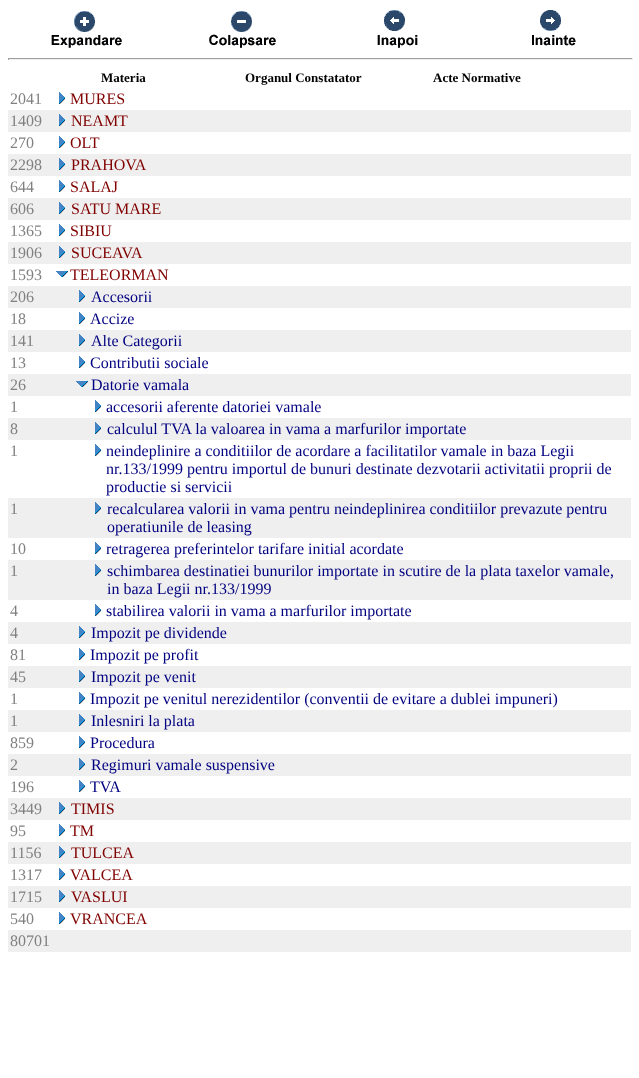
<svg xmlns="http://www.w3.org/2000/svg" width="639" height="1078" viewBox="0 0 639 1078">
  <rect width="100%" height="100%" fill="#fff"/>
  <image x="51" y="11" width="71" height="37" href="img/1.png"/>
  <image x="209" y="11" width="67" height="37" href="img/2.png"/>
  <image x="377" y="10" width="41" height="38" href="img/3.png"/>
  <image x="532" y="10" width="44" height="36" href="img/4.png"/>
  <path d="M8 58h625v1H8z" fill="#9f9f9f"/>
  <path d="M632 58h1v2H632z" fill="#eee"/>
  <path d="M8 59h625v1H8z" fill="#eee"/>
  <path d="M8 58h1v2H8z" fill="#9f9f9f"/>
  <image x="59" y="92" width="6" height="12" href="img/5.png"/>
  <path d="M8 110h623v22H8z" fill="#efefef"/>
  <image x="59" y="114" width="6" height="12" href="img/6.png"/>
  <image x="59" y="136" width="6" height="12" href="img/5.png"/>
  <path d="M8 154h623v22H8z" fill="#efefef"/>
  <image x="59" y="158" width="6" height="12" href="img/6.png"/>
  <image x="59" y="180" width="6" height="12" href="img/5.png"/>
  <path d="M8 198h623v22H8z" fill="#efefef"/>
  <image x="59" y="202" width="6" height="12" href="img/6.png"/>
  <image x="59" y="224" width="6" height="12" href="img/5.png"/>
  <path d="M8 242h623v22H8z" fill="#efefef"/>
  <image x="59" y="246" width="6" height="12" href="img/6.png"/>
  <image x="56" y="271" width="12" height="6" href="img/7.png"/>
  <path d="M8 286h623v22H8z" fill="#efefef"/>
  <image x="79" y="290" width="6" height="12" href="img/6.png"/>
  <image x="79" y="312" width="6" height="12" href="img/5.png"/>
  <path d="M8 330h623v22H8z" fill="#efefef"/>
  <image x="79" y="334" width="6" height="12" href="img/6.png"/>
  <image x="79" y="356" width="6" height="12" href="img/5.png"/>
  <path d="M8 374h623v22H8z" fill="#efefef"/>
  <image x="76" y="381" width="12" height="6" href="img/8.png"/>
  <image x="95" y="400" width="6" height="12" href="img/5.png"/>
  <path d="M8 418h623v22H8z" fill="#efefef"/>
  <image x="95" y="422" width="6" height="12" href="img/6.png"/>
  <image x="95" y="444" width="6" height="12" href="img/5.png"/>
  <path d="M8 498h623v40H8z" fill="#efefef"/>
  <image x="95" y="502" width="6" height="12" href="img/6.png"/>
  <image x="95" y="542" width="6" height="12" href="img/5.png"/>
  <path d="M8 560h623v40H8z" fill="#efefef"/>
  <image x="95" y="564" width="6" height="12" href="img/6.png"/>
  <image x="95" y="604" width="6" height="12" href="img/5.png"/>
  <path d="M8 622h623v22H8z" fill="#efefef"/>
  <image x="79" y="626" width="6" height="12" href="img/6.png"/>
  <image x="79" y="648" width="6" height="12" href="img/5.png"/>
  <path d="M8 666h623v22H8z" fill="#efefef"/>
  <image x="79" y="670" width="6" height="12" href="img/6.png"/>
  <image x="79" y="692" width="6" height="12" href="img/5.png"/>
  <path d="M8 710h623v22H8z" fill="#efefef"/>
  <image x="79" y="714" width="6" height="12" href="img/6.png"/>
  <image x="79" y="736" width="6" height="12" href="img/5.png"/>
  <path d="M8 754h623v22H8z" fill="#efefef"/>
  <image x="79" y="758" width="6" height="12" href="img/6.png"/>
  <image x="79" y="780" width="6" height="12" href="img/5.png"/>
  <path d="M8 798h623v22H8z" fill="#efefef"/>
  <image x="59" y="802" width="6" height="12" href="img/6.png"/>
  <image x="59" y="824" width="6" height="12" href="img/5.png"/>
  <path d="M8 842h623v22H8z" fill="#efefef"/>
  <image x="59" y="846" width="6" height="12" href="img/6.png"/>
  <image x="59" y="868" width="6" height="12" href="img/5.png"/>
  <path d="M8 886h623v22H8z" fill="#efefef"/>
  <image x="59" y="890" width="6" height="12" href="img/6.png"/>
  <image x="59" y="912" width="6" height="12" href="img/5.png"/>
  <path d="M8 930h623v22H8z" fill="#efefef"/>
  <g font-family="Liberation Serif" font-size="13" font-weight="bold" fill="#000">
    <text x="101" y="82">Materia</text>
    <text x="245" y="82">Organul Constatator</text>
    <text x="433" y="82">Acte Normative</text>
  </g>
  <text x="10" y="104" font-family="Liberation Serif" font-size="16" fill="#808080">2041</text>
  <text x="70" y="104" font-family="Liberation Serif" font-size="16" fill="#800000">MURES</text>
  <text x="10" y="126" font-family="Liberation Serif" font-size="16" fill="#808080">1409</text>
  <text x="71" y="126" font-family="Liberation Serif" font-size="16" fill="#800000">NEAMT</text>
  <text x="10" y="148" font-family="Liberation Serif" font-size="16" fill="#808080">270</text>
  <text x="70" y="148" font-family="Liberation Serif" font-size="16" fill="#800000">OLT</text>
  <text x="10" y="170" font-family="Liberation Serif" font-size="16" fill="#808080">2298</text>
  <text x="71" y="170" font-family="Liberation Serif" font-size="16" fill="#800000">PRAHOVA</text>
  <text x="10" y="192" font-family="Liberation Serif" font-size="16" fill="#808080">644</text>
  <text x="70" y="192" font-family="Liberation Serif" font-size="16" fill="#800000">SALAJ</text>
  <text x="10" y="214" font-family="Liberation Serif" font-size="16" fill="#808080">606</text>
  <text x="71" y="214" font-family="Liberation Serif" font-size="16" fill="#800000">SATU MARE</text>
  <text x="10" y="236" font-family="Liberation Serif" font-size="16" fill="#808080">1365</text>
  <text x="70" y="236" font-family="Liberation Serif" font-size="16" fill="#800000">SIBIU</text>
  <text x="10" y="258" font-family="Liberation Serif" font-size="16" fill="#808080">1906</text>
  <text x="71" y="258" font-family="Liberation Serif" font-size="16" fill="#800000">SUCEAVA</text>
  <text x="10" y="280" font-family="Liberation Serif" font-size="16" fill="#808080">1593</text>
  <text x="70" y="280" font-family="Liberation Serif" font-size="16" fill="#800000">TELEORMAN</text>
  <text x="10" y="302" font-family="Liberation Serif" font-size="16" fill="#808080">206</text>
  <text x="91" y="302" font-family="Liberation Serif" font-size="16" fill="#000080">Accesorii</text>
  <text x="10" y="324" font-family="Liberation Serif" font-size="16" fill="#808080">18</text>
  <text x="90" y="324" font-family="Liberation Serif" font-size="16" fill="#000080">Accize</text>
  <text x="10" y="346" font-family="Liberation Serif" font-size="16" fill="#808080">141</text>
  <text x="91" y="346" font-family="Liberation Serif" font-size="16" fill="#000080">Alte Categorii</text>
  <text x="10" y="368" font-family="Liberation Serif" font-size="16" fill="#808080">13</text>
  <text x="90" y="368" font-family="Liberation Serif" font-size="16" fill="#000080">Contributii sociale</text>
  <text x="10" y="390" font-family="Liberation Serif" font-size="16" fill="#808080">26</text>
  <text x="91" y="390" font-family="Liberation Serif" font-size="16" fill="#000080">Datorie vamala</text>
  <text x="10" y="412" font-family="Liberation Serif" font-size="16" fill="#808080">1</text>
  <text x="106" y="412" font-family="Liberation Serif" font-size="16" fill="#000080">accesorii aferente datoriei vamale</text>
  <text x="10" y="434" font-family="Liberation Serif" font-size="16" fill="#808080">8</text>
  <text x="107" y="434" font-family="Liberation Serif" font-size="16" fill="#000080">calculul TVA la valoarea in vama a marfurilor importate</text>
  <text x="10" y="456" font-family="Liberation Serif" font-size="16" fill="#808080">1</text>
  <g font-family="Liberation Serif" font-size="16" fill="#000080">
    <text x="106" y="456">neindeplinire a conditiilor de acordare a facilitatilor vamale in baza Legii</text>
    <text x="106" y="474">nr.133/1999 pentru importul de bunuri destinate dezvotarii activitatii proprii de</text>
    <text x="106" y="492">productie si servicii</text>
  </g>
  <text x="10" y="514" font-family="Liberation Serif" font-size="16" fill="#808080">1</text>
  <g font-family="Liberation Serif" font-size="16" fill="#000080">
    <text x="107" y="514">recalcularea valorii in vama pentru neindeplinirea conditiilor prevazute pentru</text>
    <text x="107" y="532">operatiunile de leasing</text>
  </g>
  <text x="10" y="554" font-family="Liberation Serif" font-size="16" fill="#808080">10</text>
  <text x="106" y="554" font-family="Liberation Serif" font-size="16" fill="#000080">retragerea preferintelor tarifare initial acordate</text>
  <text x="10" y="576" font-family="Liberation Serif" font-size="16" fill="#808080">1</text>
  <g font-family="Liberation Serif" font-size="16" fill="#000080">
    <text x="107" y="576">schimbarea destinatiei bunurilor importate in scutire de la plata taxelor vamale,</text>
    <text x="107" y="594">in baza Legii nr.133/1999</text>
  </g>
  <text x="10" y="616" font-family="Liberation Serif" font-size="16" fill="#808080">4</text>
  <text x="106" y="616" font-family="Liberation Serif" font-size="16" fill="#000080">stabilirea valorii in vama a marfurilor importate</text>
  <text x="10" y="638" font-family="Liberation Serif" font-size="16" fill="#808080">4</text>
  <text x="91" y="638" font-family="Liberation Serif" font-size="16" fill="#000080">Impozit pe dividende</text>
  <text x="10" y="660" font-family="Liberation Serif" font-size="16" fill="#808080">81</text>
  <text x="90" y="660" font-family="Liberation Serif" font-size="16" fill="#000080">Impozit pe profit</text>
  <text x="10" y="682" font-family="Liberation Serif" font-size="16" fill="#808080">45</text>
  <text x="91" y="682" font-family="Liberation Serif" font-size="16" fill="#000080">Impozit pe venit</text>
  <text x="10" y="704" font-family="Liberation Serif" font-size="16" fill="#808080">1</text>
  <text x="90" y="704" font-family="Liberation Serif" font-size="16" fill="#000080">Impozit pe venitul nerezidentilor (conventii de evitare a dublei impuneri)</text>
  <text x="10" y="726" font-family="Liberation Serif" font-size="16" fill="#808080">1</text>
  <text x="91" y="726" font-family="Liberation Serif" font-size="16" fill="#000080">Inlesniri la plata</text>
  <text x="10" y="748" font-family="Liberation Serif" font-size="16" fill="#808080">859</text>
  <text x="90" y="748" font-family="Liberation Serif" font-size="16" fill="#000080">Procedura</text>
  <text x="10" y="770" font-family="Liberation Serif" font-size="16" fill="#808080">2</text>
  <text x="91" y="770" font-family="Liberation Serif" font-size="16" fill="#000080">Regimuri vamale suspensive</text>
  <text x="10" y="792" font-family="Liberation Serif" font-size="16" fill="#808080">196</text>
  <text x="90" y="792" font-family="Liberation Serif" font-size="16" fill="#000080">TVA</text>
  <text x="10" y="814" font-family="Liberation Serif" font-size="16" fill="#808080">3449</text>
  <text x="71" y="814" font-family="Liberation Serif" font-size="16" fill="#800000">TIMIS</text>
  <text x="10" y="836" font-family="Liberation Serif" font-size="16" fill="#808080">95</text>
  <text x="70" y="836" font-family="Liberation Serif" font-size="16" fill="#800000">TM</text>
  <text x="10" y="858" font-family="Liberation Serif" font-size="16" fill="#808080">1156</text>
  <text x="71" y="858" font-family="Liberation Serif" font-size="16" fill="#800000">TULCEA</text>
  <text x="10" y="880" font-family="Liberation Serif" font-size="16" fill="#808080">1317</text>
  <text x="70" y="880" font-family="Liberation Serif" font-size="16" fill="#800000">VALCEA</text>
  <text x="10" y="902" font-family="Liberation Serif" font-size="16" fill="#808080">1715</text>
  <text x="71" y="902" font-family="Liberation Serif" font-size="16" fill="#800000">VASLUI</text>
  <text x="10" y="924" font-family="Liberation Serif" font-size="16" fill="#808080">540</text>
  <text x="70" y="924" font-family="Liberation Serif" font-size="16" fill="#800000">VRANCEA</text>
  <text x="10" y="946" font-family="Liberation Serif" font-size="16" fill="#808080">80701</text>
</svg>
